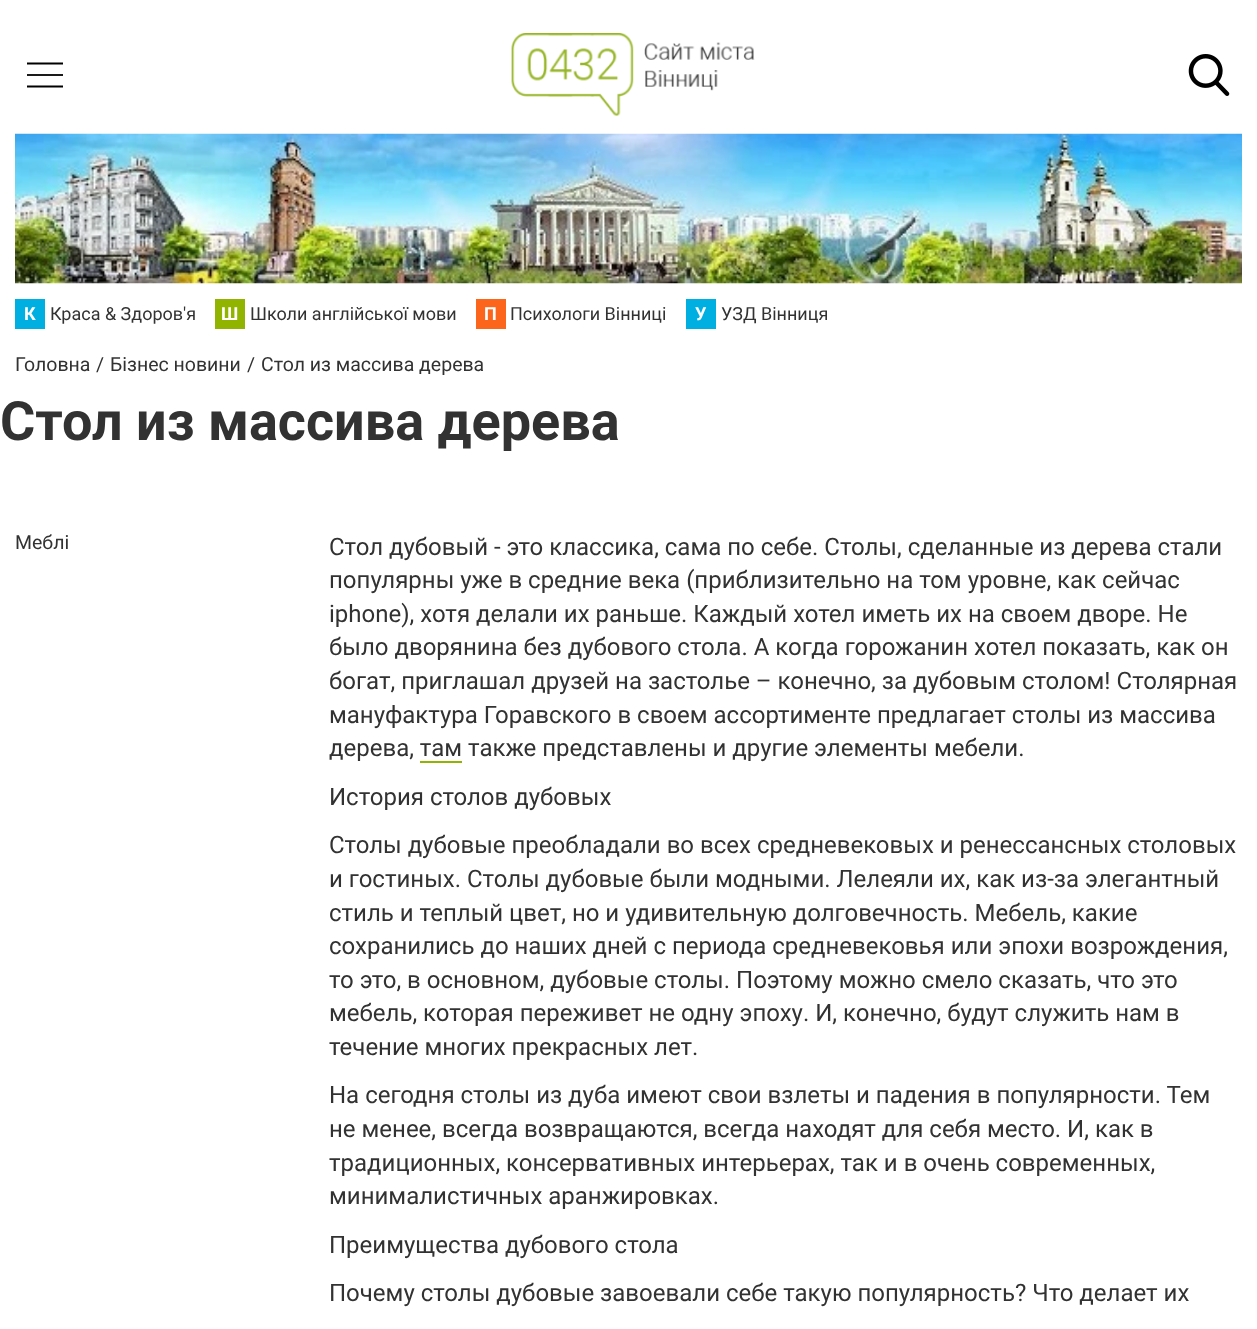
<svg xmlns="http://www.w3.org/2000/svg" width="1257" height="1329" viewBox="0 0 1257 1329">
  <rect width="100%" height="100%" fill="#fff"/>
  <path d="M27 63.5H63" fill="none" stroke="#000" stroke-width="1.8"/>
  <path d="M27 74h36v2H27z" fill="#1a1a1a"/>
  <path d="M27 86.5H63" fill="none" stroke="#000" stroke-width="1.8"/>
  <image x="511" y="33" width="244" height="83" href="img/1.png"/>
  <image x="1188" y="54" width="42" height="42" href="img/2.png"/>
  <image x="15" y="133" width="1227" height="151" href="img/3.png"/>
  <path d="M15 299h30v30H15z" fill="#00afe1"/>
  <path d="M215 299h30v30H215z" fill="#90b400"/>
  <path d="M476 299h30v30H476z" fill="#fb661c"/>
  <path d="M686 299h30v30H686z" fill="#00afe1"/>
  <text x="24" y="320" font-family="Roboto" font-size="18" font-weight="bold" fill="#fff">К</text>
  <text x="50" y="320" font-family="Roboto" font-size="18" fill="#323232">Краса &amp; Здоров'я</text>
  <text x="221" y="320" font-family="Roboto" font-size="18" font-weight="bold" fill="#fff">Ш</text>
  <text x="250" y="320" font-family="Roboto" font-size="18" fill="#323232">Школи англійської мови</text>
  <text x="484" y="320" font-family="Roboto" font-size="18" font-weight="bold" fill="#fff">П</text>
  <text x="510" y="320" font-family="Roboto" font-size="18" fill="#323232">Психологи Вінниці</text>
  <text x="695" y="320" font-family="Roboto" font-size="18" font-weight="bold" fill="#fff">У</text>
  <text x="721" y="320" font-family="Roboto" font-size="18" fill="#323232">УЗД Вінниця</text>
  <g font-family="Roboto" font-size="19.5" fill="#323232">
    <text x="15" y="371">Головна</text>
    <text x="96" y="371">/</text>
    <text x="110" y="371">Бізнес новини</text>
    <text x="247" y="371">/</text>
    <text x="261" y="371">Стол из массива дерева</text>
  </g>
  <text x="0" y="440" font-family="Roboto" font-size="54" font-weight="bold" fill="#323232">Стол из массива дерева</text>
  <text x="15" y="549" font-family="Roboto" font-size="19.5" fill="#323232">Меблі</text>
  <g font-family="Roboto" font-size="24" fill="#323232">
    <text x="329" y="555">Стол дубовый - это классика, сама по себе. Столы, сделанные из дерева стали</text>
    <text x="329" y="588">популярны уже в средние века (приблизительно на том уровне, как сейчас</text>
    <text x="329" y="622">iphone), хотя делали их раньше. Каждый хотел иметь их на своем дворе. Не</text>
    <text x="329" y="655">было дворянина без дубового стола. А когда горожанин хотел показать, как он</text>
    <text x="329" y="689">богат, приглашал друзей на застолье – конечно, за дубовым столом! Столярная</text>
    <text x="329" y="723">мануфактура Горавского в своем ассортименте предлагает столы из массива</text>
    <text x="329" y="756">дерева, там также представлены и другие элементы мебели.</text>
  </g>
  <path d="M420 761h42v2H420z" fill="#90b400"/>
  <g font-family="Roboto" font-size="24" fill="#323232">
    <text x="329" y="805">История столов дубовых</text>
    <text x="329" y="853">Столы дубовые преобладали во всех средневековых и ренессансных столовых</text>
    <text x="329" y="887">и гостиных. Столы дубовые были модными. Лелеяли их, как из-за элегантный</text>
    <text x="329" y="921">стиль и теплый цвет, но и удивительную долговечность. Мебель, какие</text>
    <text x="329" y="954">сохранились до наших дней с периода средневековья или эпохи возрождения,</text>
    <text x="329" y="988">то это, в основном, дубовые столы. Поэтому можно смело сказать, что это</text>
    <text x="329" y="1021">мебель, которая переживет не одну эпоху. И, конечно, будут служить нам в</text>
    <text x="329" y="1055">течение многих прекрасных лет.</text>
    <text x="329" y="1103">На сегодня столы из дуба имеют свои взлеты и падения в популярности. Тем</text>
    <text x="329" y="1137">не менее, всегда возвращаются, всегда находят для себя место. И, как в</text>
    <text x="329" y="1171">традиционных, консервативных интерьерах, так и в очень современных,</text>
    <text x="329" y="1204">минималистичных аранжировках.</text>
    <text x="329" y="1253">Преимущества дубового стола</text>
    <text x="329" y="1301">Почему столы дубовые завоевали себе такую популярность? Что делает их</text>
  </g>
</svg>
